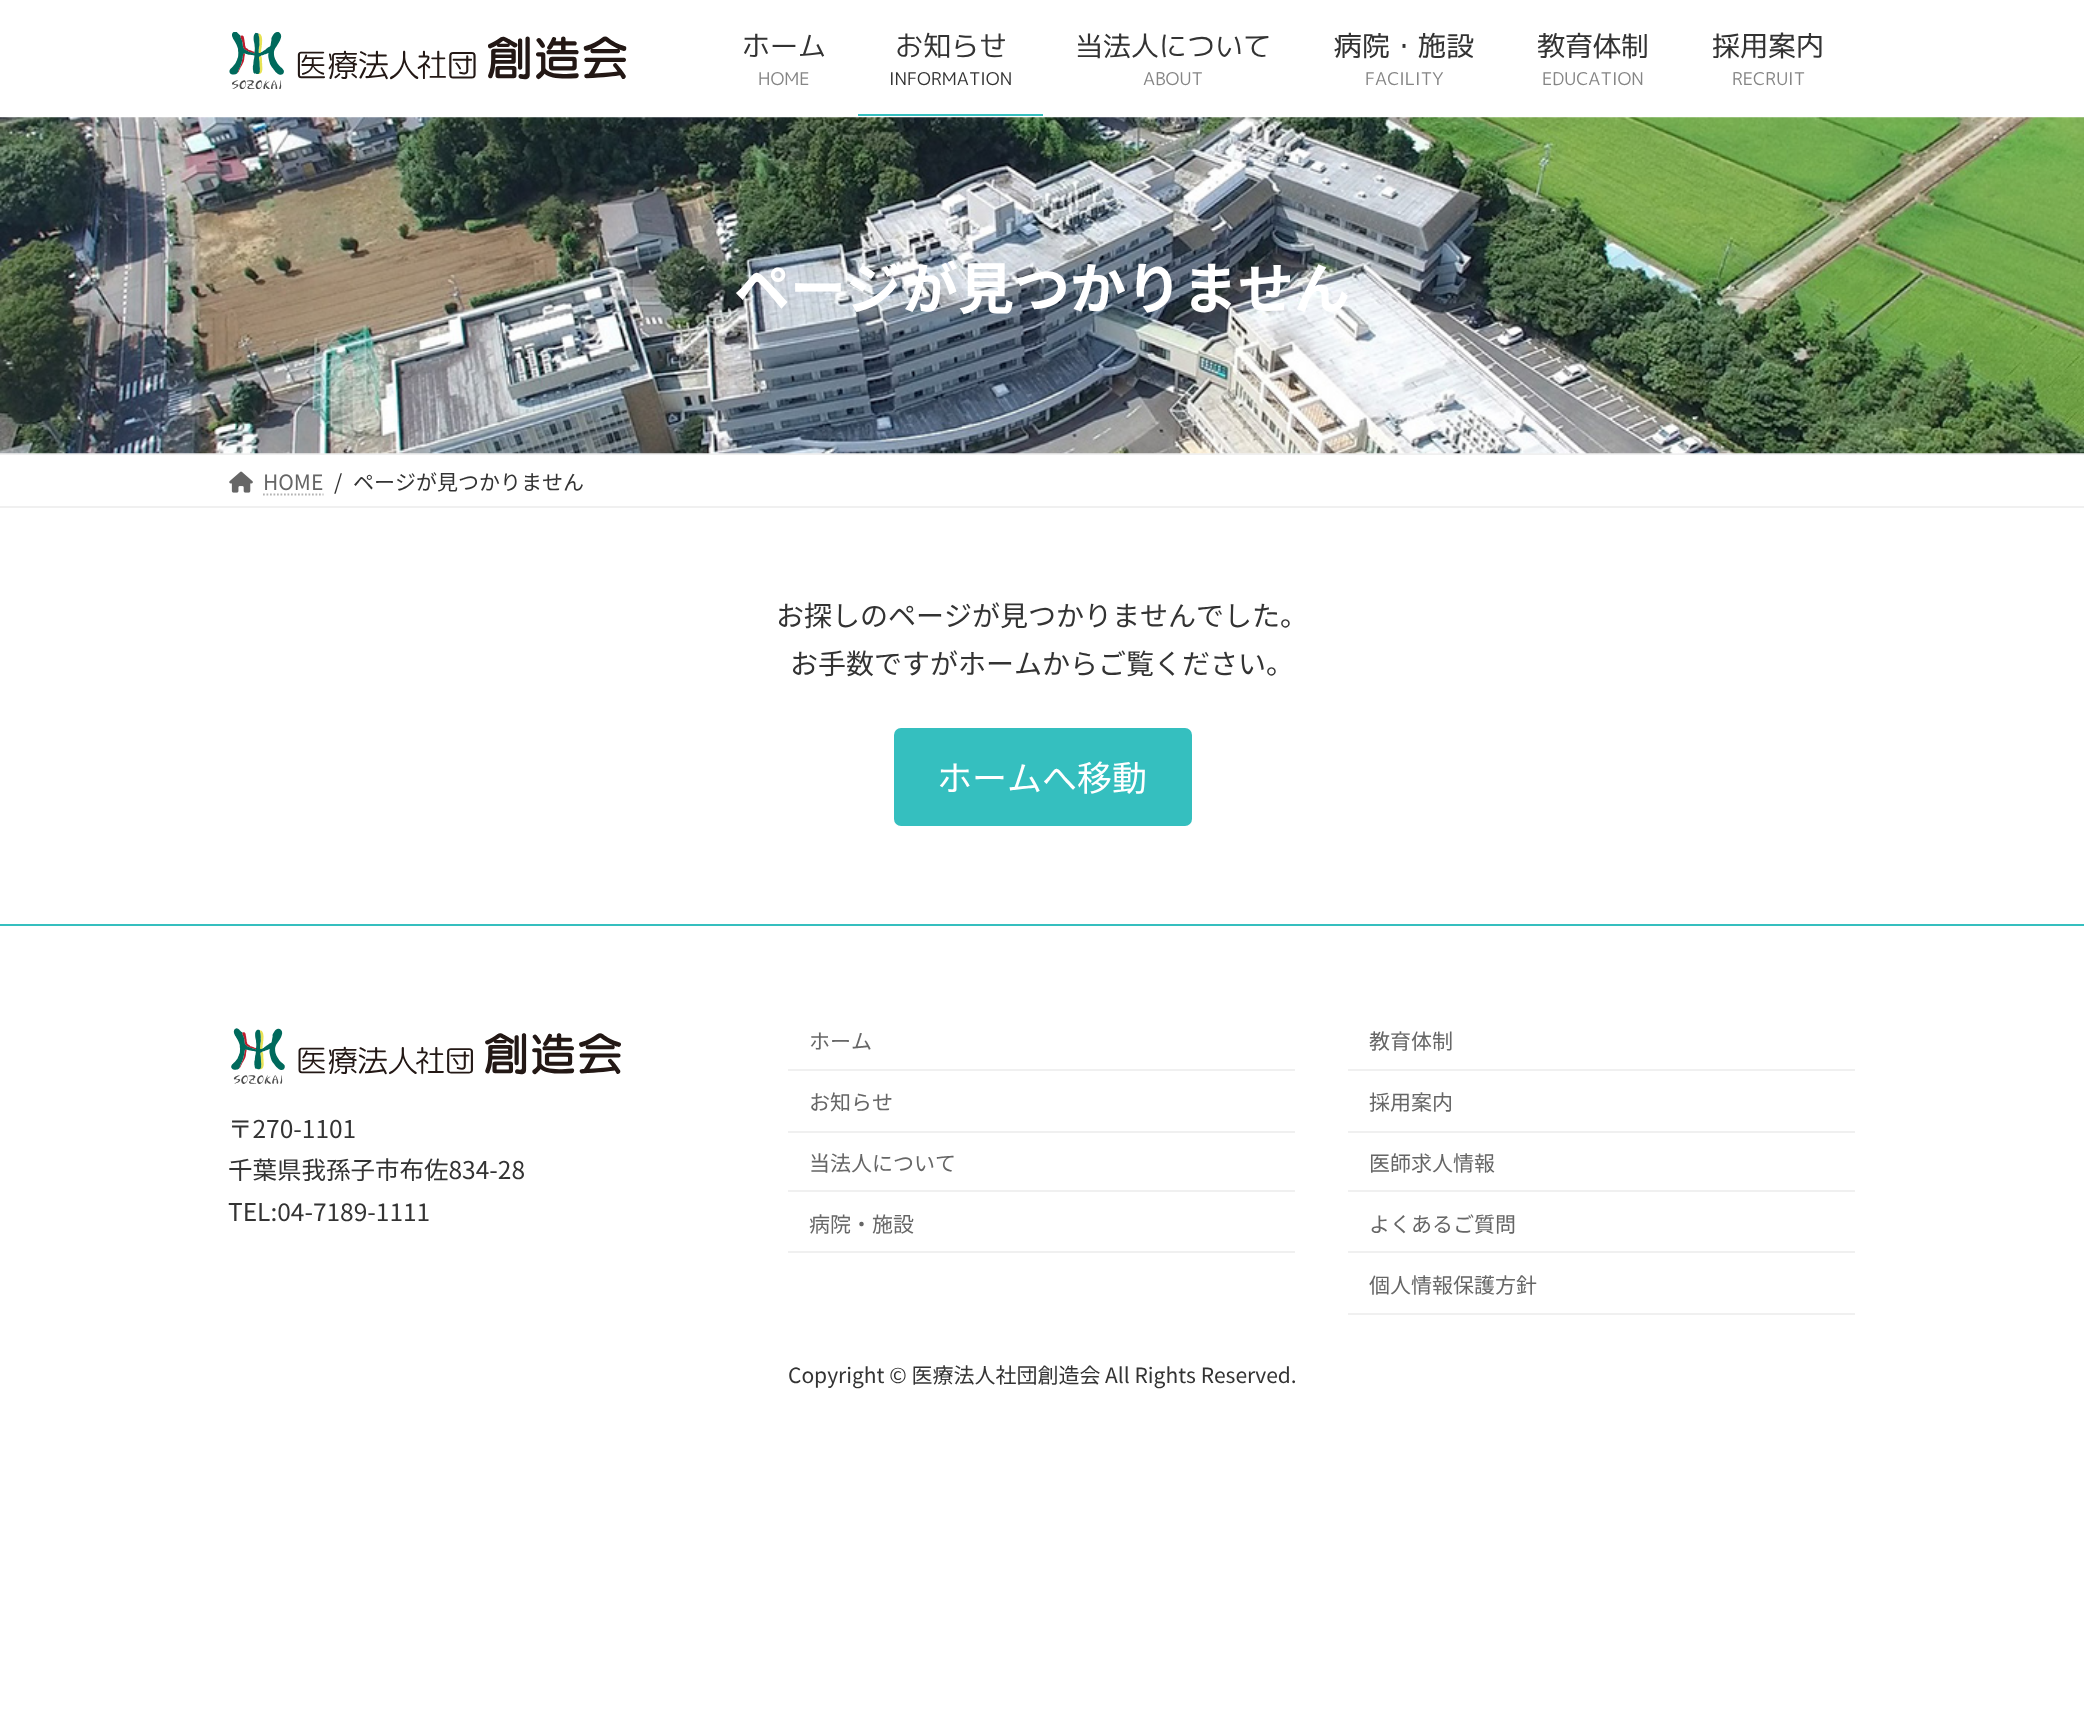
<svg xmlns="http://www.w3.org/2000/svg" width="2084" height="1727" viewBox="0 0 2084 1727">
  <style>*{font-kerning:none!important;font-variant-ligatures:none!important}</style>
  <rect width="100%" height="100%" fill="#fff"/>
  <image x="229" y="32" width="398" height="57" href="img/1.png"/>
  <path d="M858 114h185v2H858z" fill="#35bfbf"/>
  <path d="M0 453h2084v2H0z" fill="#f0f0f0"/>
  <image x="0" y="117" width="2084" height="337" href="img/2.png"/>
  <path d="M0 506h2084v2H0z" fill="#f0f0f0"/>
  <image x="229" y="471" width="24" height="22" href="img/3.png"/>
  <path d="M263 494.5H323.5" fill="none" stroke="#b3b3b3" stroke-width="1.8" stroke-dasharray="1.75 1.75"/>
  <rect x="894" y="728" width="298" height="98" rx="7" fill="#35bfbf"/>
  <path d="M0 924h2084v2H0z" fill="#35bfbf"/>
  <image x="231" y="1028" width="390" height="56" href="img/4.png"/>
  <path d="M788 1069h507v2H788z" fill="#f0f0f0"/>
  <path d="M788 1131h507v2H788z" fill="#f0f0f0"/>
  <path d="M788 1190h507v2H788z" fill="#f0f0f0"/>
  <path d="M788 1251h507v2H788z" fill="#f0f0f0"/>
  <path d="M1348 1069h507v2H1348z" fill="#f0f0f0"/>
  <path d="M1348 1131h507v2H1348z" fill="#f0f0f0"/>
  <path d="M1348 1190h507v2H1348z" fill="#f0f0f0"/>
  <path d="M1348 1251h507v2H1348z" fill="#f0f0f0"/>
  <path d="M1348 1313h507v2H1348z" fill="#f0f0f0"/>
  <text x="742" y="56" font-family="'M PLUS 1p'" font-size="28" fill="#333">ホーム</text>
  <text x="758" y="85" font-family="'M PLUS 1p'" font-size="17.5" fill="#858585">HOME</text>
  <text x="895" y="56" font-family="'M PLUS 1p'" font-size="28" fill="#333">お知らせ</text>
  <text x="889" y="85" font-family="'M PLUS 1p'" font-size="17.5" fill="#333">INFORMATION</text>
  <text x="1075" y="56" font-family="'M PLUS 1p'" font-size="28" fill="#333">当法人について</text>
  <text x="1143" y="85" font-family="'M PLUS 1p'" font-size="17.5" fill="#858585">ABOUT</text>
  <text x="1334" y="56" font-family="'M PLUS 1p'" font-size="28" fill="#333">病院・施設</text>
  <text x="1365" y="85" font-family="'M PLUS 1p'" font-size="17.5" fill="#858585">FACILITY</text>
  <text x="1537" y="56" font-family="'M PLUS 1p'" font-size="28" fill="#333">教育体制</text>
  <text x="1542" y="85" font-family="'M PLUS 1p'" font-size="17.5" fill="#858585">EDUCATION</text>
  <text x="1712" y="56" font-family="'M PLUS 1p'" font-size="28" fill="#333">採用案内</text>
  <text x="1732" y="85" font-family="'M PLUS 1p'" font-size="17.5" fill="#858585">RECRUIT</text>
  <text x="734" y="309" font-family="Noto Sans JP" font-size="56" font-weight="bold" fill="#fff">ページが見つかりません</text>
  <text x="263" y="490" font-family="Noto Sans JP" font-size="21" fill="#666">HOME</text>
  <g font-family="Noto Sans JP" font-size="21" fill="#333">
    <text x="334" y="490">/</text>
    <text x="353" y="490">ページが見つかりません</text>
  </g>
  <g font-family="Noto Sans JP" font-size="28" fill="#333">
    <text x="776" y="626">お探しのページが見つかりませんでした。</text>
    <text x="790" y="674">お手数ですがホームからご覧ください。</text>
  </g>
  <text x="937" y="791" font-family="Noto Sans JP" font-size="35" fill="#fff">ホームへ移動</text>
  <g font-family="Noto Sans JP" font-size="24.5" fill="#333">
    <text x="228" y="1138">〒270-1101</text>
    <text x="228" y="1179">千葉県我孫子市布佐834-28</text>
    <text x="228" y="1221">TEL:04-7189-1111</text>
  </g>
  <g font-family="Noto Sans JP" font-size="21" fill="#666">
    <text x="809" y="1049">ホーム</text>
    <text x="809" y="1110">お知らせ</text>
    <text x="809" y="1171">当法人について</text>
    <text x="809" y="1232">病院・施設</text>
    <text x="1369" y="1049">教育体制</text>
    <text x="1369" y="1110">採用案内</text>
    <text x="1369" y="1171">医師求人情報</text>
    <text x="1369" y="1232">よくあるご質問</text>
    <text x="1369" y="1293">個人情報保護方針</text>
  </g>
  <text x="788" y="1383" font-family="Noto Sans JP" font-size="21" fill="#333">Copyright © 医療法人社団創造会 All Rights Reserved.</text>
</svg>
